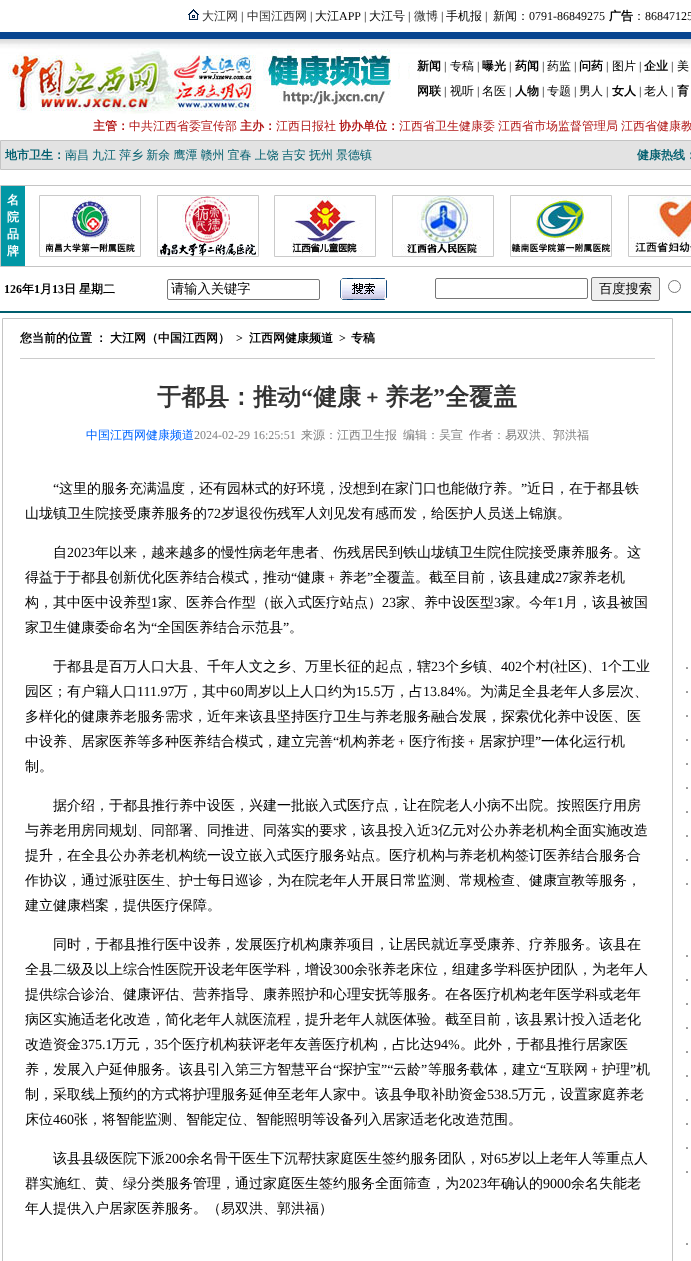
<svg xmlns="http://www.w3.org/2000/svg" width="691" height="1261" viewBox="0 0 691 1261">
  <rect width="100%" height="100%" fill="#fff"/>
  <image x="188" y="9" width="11" height="11" href="img/1.png"/>
  <path d="M0 32h691v7H0z" fill="#074590"/>
  <image x="0" y="39" width="691" height="40" href="img/2.png"/>
  <image x="8" y="48" width="252" height="66" href="img/3.png"/>
  <image x="263" y="49" width="128" height="56" href="img/4.png"/>
  <path d="M0.5 140.5h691v29H0.5z" fill="none" stroke="#c4c4c4"/>
  <path d="M1 141h690v28H1z" fill="#e3e3e3"/>
  <path d="M0.5 185.5h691v81H0.5z" fill="none" stroke="#c4c4c4"/>
  <path d="M1 186h24v80H1z" fill="#0197a5"/>
  <path d="M39.5 195.5h101v61H39.5z" fill="none" stroke="#cacaca"/>
  <image x="40" y="196" width="95" height="58" href="img/5.png"/>
  <path d="M157.5 195.5h101v61H157.5z" fill="none" stroke="#cacaca"/>
  <image x="158" y="196" width="100" height="60" href="img/6.png"/>
  <path d="M274.5 195.5h101v61H274.5z" fill="none" stroke="#cacaca"/>
  <image x="291" y="196" width="72" height="60" href="img/7.png"/>
  <path d="M392.5 195.5h101v61H392.5z" fill="none" stroke="#cacaca"/>
  <image x="401" y="196" width="80" height="60" href="img/8.png"/>
  <path d="M510.5 195.5h101v61H510.5z" fill="none" stroke="#cacaca"/>
  <image x="511" y="196" width="100" height="57" href="img/9.png"/>
  <path d="M628.5 195.5h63v61H628.5z" fill="none" stroke="#cacaca"/>
  <image x="630" y="196" width="61" height="57" href="img/10.png"/>
  <path d="M0 311h691v2H0z" fill="#005e6e"/>
  <rect x="167.5" y="279.5" width="152" height="20" rx="1.5" fill="none" stroke="#767676"/>
  <image x="340" y="278" width="47" height="22" href="img/11.png"/>
  <rect x="435.5" y="278.5" width="152" height="20" rx="1.5" fill="none" stroke="#767676"/>
  <rect x="591.5" y="277.5" width="68" height="23" rx="1.5" fill="#efefef" stroke="#767676"/>
  <circle cx="674.5" cy="286.5" r="6" fill="none" stroke="#767676"/>
  <path d="M2.5 318.5h670v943H2.5z" fill="none" stroke="#c4c4c4"/>
  <path d="M20 358h635v1H20z" fill="#ccc"/>
  <text x="202" y="20" font-family="WenQuanYi Zen Hei" font-size="12" font-weight="500" fill="#333">大江网</text>
  <text x="241" y="20" font-family="Liberation Serif" font-size="12" fill="#000">|</text>
  <text x="247" y="20" font-family="WenQuanYi Zen Hei" font-size="12" font-weight="500" fill="#333">中国江西网</text>
  <text x="310" y="20" font-family="Liberation Serif" font-size="12" fill="#000">|</text>
  <text x="315" y="20" font-family="WenQuanYi Zen Hei" font-size="12" font-weight="500" fill="#000">大江</text>
  <g font-family="Liberation Serif" font-size="12" fill="#000">
    <text x="339" y="20">APP</text>
    <text x="364" y="20">|</text>
  </g>
  <text x="369" y="20" font-family="WenQuanYi Zen Hei" font-size="12" font-weight="500" fill="#000">大江号</text>
  <text x="408" y="20" font-family="Liberation Serif" font-size="12" fill="#000">|</text>
  <text x="414" y="20" font-family="WenQuanYi Zen Hei" font-size="12" font-weight="500" fill="#333">微博</text>
  <text x="441" y="20" font-family="Liberation Serif" font-size="12" fill="#000">|</text>
  <text x="446" y="20" font-family="WenQuanYi Zen Hei" font-size="12" font-weight="500" fill="#000">手机报</text>
  <text x="485" y="20" font-family="Liberation Serif" font-size="12" fill="#000">|</text>
  <text x="493" y="20" font-family="WenQuanYi Zen Hei" font-size="12" font-weight="500" fill="#000">新闻：</text>
  <text x="529" y="20" font-family="Liberation Serif" font-size="12" fill="#000">0791-86849275</text>
  <text x="609" y="20" font-family="WenQuanYi Zen Hei" font-size="12" font-weight="bold" fill="#000">广告</text>
  <text x="633" y="20" font-family="WenQuanYi Zen Hei" font-size="12" font-weight="500" fill="#000">：</text>
  <text x="645" y="20" font-family="Liberation Serif" font-size="12" fill="#000">86847125</text>
  <text x="417" y="70" font-family="WenQuanYi Zen Hei" font-size="12" font-weight="bold" fill="#000">新闻</text>
  <text x="444" y="70" font-family="Liberation Serif" font-size="12" fill="#000">|</text>
  <text x="450" y="70" font-family="WenQuanYi Zen Hei" font-size="12" font-weight="500" fill="#000">专稿</text>
  <text x="477" y="70" font-family="Liberation Serif" font-size="12" fill="#000">|</text>
  <text x="482" y="70" font-family="WenQuanYi Zen Hei" font-size="12" font-weight="bold" fill="#000">曝光</text>
  <text x="509" y="70" font-family="Liberation Serif" font-size="12" fill="#000">|</text>
  <text x="515" y="70" font-family="WenQuanYi Zen Hei" font-size="12" font-weight="bold" fill="#000">药闻</text>
  <text x="542" y="70" font-family="Liberation Serif" font-size="12" fill="#000">|</text>
  <text x="547" y="70" font-family="WenQuanYi Zen Hei" font-size="12" font-weight="500" fill="#000">药监</text>
  <text x="574" y="70" font-family="Liberation Serif" font-size="12" fill="#000">|</text>
  <text x="579" y="70" font-family="WenQuanYi Zen Hei" font-size="12" font-weight="bold" fill="#000">问药</text>
  <text x="606" y="70" font-family="Liberation Serif" font-size="12" fill="#000">|</text>
  <text x="612" y="70" font-family="WenQuanYi Zen Hei" font-size="12" font-weight="500" fill="#000">图片</text>
  <text x="639" y="70" font-family="Liberation Serif" font-size="12" fill="#000">|</text>
  <text x="644" y="70" font-family="WenQuanYi Zen Hei" font-size="12" font-weight="bold" fill="#000">企业</text>
  <text x="671" y="70" font-family="Liberation Serif" font-size="12" fill="#000">|</text>
  <text x="677" y="70" font-family="WenQuanYi Zen Hei" font-size="12" font-weight="500" fill="#000">美</text>
  <text x="417" y="95" font-family="WenQuanYi Zen Hei" font-size="12" font-weight="bold" fill="#000">网联</text>
  <text x="444" y="95" font-family="Liberation Serif" font-size="12" fill="#000">|</text>
  <text x="450" y="95" font-family="WenQuanYi Zen Hei" font-size="12" font-weight="500" fill="#000">视听</text>
  <text x="477" y="95" font-family="Liberation Serif" font-size="12" fill="#000">|</text>
  <text x="482" y="95" font-family="WenQuanYi Zen Hei" font-size="12" font-weight="500" fill="#000">名医</text>
  <text x="509" y="95" font-family="Liberation Serif" font-size="12" fill="#000">|</text>
  <text x="515" y="95" font-family="WenQuanYi Zen Hei" font-size="12" font-weight="bold" fill="#000">人物</text>
  <text x="542" y="95" font-family="Liberation Serif" font-size="12" fill="#000">|</text>
  <text x="547" y="95" font-family="WenQuanYi Zen Hei" font-size="12" font-weight="500" fill="#000">专题</text>
  <text x="574" y="95" font-family="Liberation Serif" font-size="12" fill="#000">|</text>
  <text x="579" y="95" font-family="WenQuanYi Zen Hei" font-size="12" font-weight="500" fill="#000">男人</text>
  <text x="606" y="95" font-family="Liberation Serif" font-size="12" fill="#000">|</text>
  <text x="612" y="95" font-family="WenQuanYi Zen Hei" font-size="12" font-weight="bold" fill="#000">女人</text>
  <text x="639" y="95" font-family="Liberation Serif" font-size="12" fill="#000">|</text>
  <text x="644" y="95" font-family="WenQuanYi Zen Hei" font-size="12" font-weight="500" fill="#000">老人</text>
  <text x="671" y="95" font-family="Liberation Serif" font-size="12" fill="#000">|</text>
  <text x="677" y="95" font-family="WenQuanYi Zen Hei" font-size="12" font-weight="bold" fill="#000">育</text>
  <text x="93" y="130" font-family="WenQuanYi Zen Hei" font-size="12" font-weight="bold" fill="#b21818">主管：</text>
  <text x="129" y="130" font-family="WenQuanYi Zen Hei" font-size="12" font-weight="500" fill="#b21818">中共江西省委宣传部</text>
  <text x="240" y="130" font-family="WenQuanYi Zen Hei" font-size="12" font-weight="bold" fill="#b21818">主办：</text>
  <text x="276" y="130" font-family="WenQuanYi Zen Hei" font-size="12" font-weight="500" fill="#b21818">江西日报社</text>
  <text x="339" y="130" font-family="WenQuanYi Zen Hei" font-size="12" font-weight="bold" fill="#b21818">协办单位：</text>
  <g font-family="WenQuanYi Zen Hei" font-size="12" font-weight="500" fill="#b21818">
    <text x="399" y="130">江西省卫生健康委</text>
    <text x="498" y="130" word-spacing="-0.5">江西省市场监督管理局 江西省健康教</text>
  </g>
  <text x="5" y="159" font-family="WenQuanYi Zen Hei" font-size="12" font-weight="bold" fill="#005e6e">地市卫生：</text>
  <text x="65" y="159" word-spacing="-0.5" font-family="WenQuanYi Zen Hei" font-size="12" font-weight="500" fill="#005e6e">南昌 九江 萍乡 新余 鹰潭 赣州 宜春 上饶 吉安 抚州 景德镇</text>
  <text x="637" y="159" font-family="WenQuanYi Zen Hei" font-size="12" font-weight="bold" fill="#005e6e">健康热线：</text>
  <g font-family="WenQuanYi Zen Hei" font-size="12" font-weight="bold" fill="#fff">
    <text x="7" y="204">名</text>
    <text x="7" y="221">院</text>
    <text x="7" y="238">品</text>
    <text x="7" y="255">牌</text>
  </g>
  <text x="4" y="293" font-family="Liberation Serif" font-size="12" font-weight="bold" fill="#000">126</text>
  <text x="22" y="293" font-family="WenQuanYi Zen Hei" font-size="12" font-weight="bold" fill="#000">年</text>
  <text x="34" y="293" font-family="Liberation Serif" font-size="12" font-weight="bold" fill="#000">1</text>
  <text x="40" y="293" font-family="WenQuanYi Zen Hei" font-size="12" font-weight="bold" fill="#000">月</text>
  <text x="52" y="293" font-family="Liberation Serif" font-size="12" font-weight="bold" fill="#000">13</text>
  <text x="64" y="293" word-spacing="-0.5" font-family="WenQuanYi Zen Hei" font-size="12" font-weight="bold" fill="#000">日 星期二</text>
  <g font-family="WenQuanYi Zen Hei" font-size="13.25" font-weight="500" fill="#000">
    <text x="171" y="293">请输入关键字</text>
    <text x="599" y="293">百度搜索</text>
  </g>
  <g font-family="WenQuanYi Zen Hei" font-size="12" font-weight="bold" fill="#000">
    <text x="20" y="342" word-spacing="-0.5">您当前的位置 ：</text>
    <text x="110" y="342">大江网（中国江西网）</text>
  </g>
  <text x="236" y="342" font-family="Liberation Serif" font-size="12" font-weight="bold" fill="#000">&gt;</text>
  <text x="249" y="342" font-family="WenQuanYi Zen Hei" font-size="12" font-weight="bold" fill="#000">江西网健康频道</text>
  <text x="339" y="342" font-family="Liberation Serif" font-size="12" font-weight="bold" fill="#000">&gt;</text>
  <text x="351" y="342" font-family="WenQuanYi Zen Hei" font-size="12" font-weight="bold" fill="#000">专稿</text>
  <text x="157" y="405" font-family="WenQuanYi Zen Hei" font-size="24" font-weight="bold" fill="#333">于都县：推动</text>
  <text x="301" y="405" font-family="Liberation Serif" font-size="24" font-weight="bold" fill="#333">“</text>
  <text x="313" y="405" font-family="WenQuanYi Zen Hei" font-size="24" font-weight="bold" fill="#333">健康﹢养老</text>
  <text x="433" y="405" font-family="Liberation Serif" font-size="24" font-weight="bold" fill="#333">”</text>
  <text x="445" y="405" font-family="WenQuanYi Zen Hei" font-size="24" font-weight="bold" fill="#333">全覆盖</text>
  <text x="86" y="439" font-family="WenQuanYi Zen Hei" font-size="12" font-weight="500" fill="#06f">中国江西网健康频道</text>
  <text x="194" y="439" font-family="Liberation Serif" font-size="12" fill="#808080">2024-02-29 16:25:51</text>
  <g font-family="WenQuanYi Zen Hei" font-size="12" font-weight="500" fill="#808080">
    <text x="301" y="439">来源：江西卫生报</text>
    <text x="403" y="439">编辑：吴宣</text>
    <text x="469" y="439">作者：易双洪、郭洪福</text>
  </g>
  <text x="53" y="493" font-family="Liberation Serif" font-size="14" fill="#000">“</text>
  <text x="59" y="493" font-family="WenQuanYi Zen Hei" font-size="14" font-weight="500" fill="#000">这里的服务充满温度，还有园林式的好环境，没想到在家门口也能做疗养。</text>
  <text x="521" y="493" font-family="Liberation Serif" font-size="14" fill="#000">”</text>
  <g font-family="WenQuanYi Zen Hei" font-size="14" font-weight="500" fill="#000">
    <text x="527" y="493">近日，在于都县铁</text>
    <text x="25" y="518">山垅镇卫生院接受康养服务的</text>
  </g>
  <text x="207" y="518" font-family="Liberation Serif" font-size="14" fill="#000">72</text>
  <g font-family="WenQuanYi Zen Hei" font-size="14" font-weight="500" fill="#000">
    <text x="221" y="518">岁退役伤残军人刘见发有感而发，给医护人员送上锦旗。</text>
    <text x="53" y="557">自</text>
  </g>
  <text x="67" y="557" font-family="Liberation Serif" font-size="14" fill="#000">2023</text>
  <g font-family="WenQuanYi Zen Hei" font-size="14" font-weight="500" fill="#000">
    <text x="95" y="557">年以来，越来越多的慢性病老年患者、伤残居民到铁山垅镇卫生院住院接受康养服务。这</text>
    <text x="25" y="582">得益于于都县创新优化医养结合模式，推动</text>
  </g>
  <text x="291" y="582" font-family="Liberation Serif" font-size="14" fill="#000">“</text>
  <text x="297" y="582" font-family="WenQuanYi Zen Hei" font-size="14" font-weight="500" fill="#000">健康﹢养老</text>
  <text x="367" y="582" font-family="Liberation Serif" font-size="14" fill="#000">”</text>
  <text x="373" y="582" font-family="WenQuanYi Zen Hei" font-size="14" font-weight="500" fill="#000">全覆盖。截至目前，该县建成</text>
  <text x="555" y="582" font-family="Liberation Serif" font-size="14" fill="#000">27</text>
  <g font-family="WenQuanYi Zen Hei" font-size="14" font-weight="500" fill="#000">
    <text x="569" y="582">家养老机</text>
    <text x="25" y="607">构，其中医中设养型</text>
  </g>
  <text x="151" y="607" font-family="Liberation Serif" font-size="14" fill="#000">1</text>
  <text x="158" y="607" font-family="WenQuanYi Zen Hei" font-size="14" font-weight="500" fill="#000">家、医养合作型（嵌入式医疗站点）</text>
  <text x="382" y="607" font-family="Liberation Serif" font-size="14" fill="#000">23</text>
  <text x="396" y="607" font-family="WenQuanYi Zen Hei" font-size="14" font-weight="500" fill="#000">家、养中设医型</text>
  <text x="494" y="607" font-family="Liberation Serif" font-size="14" fill="#000">3</text>
  <text x="501" y="607" font-family="WenQuanYi Zen Hei" font-size="14" font-weight="500" fill="#000">家。今年</text>
  <text x="557" y="607" font-family="Liberation Serif" font-size="14" fill="#000">1</text>
  <g font-family="WenQuanYi Zen Hei" font-size="14" font-weight="500" fill="#000">
    <text x="564" y="607">月，该县被国</text>
    <text x="25" y="632">家卫生健康委命名为</text>
  </g>
  <text x="151" y="632" font-family="Liberation Serif" font-size="14" fill="#000">“</text>
  <text x="157" y="632" font-family="WenQuanYi Zen Hei" font-size="14" font-weight="500" fill="#000">全国医养结合示范县</text>
  <text x="283" y="632" font-family="Liberation Serif" font-size="14" fill="#000">”</text>
  <g font-family="WenQuanYi Zen Hei" font-size="14" font-weight="500" fill="#000">
    <text x="289" y="632">。</text>
    <text x="53" y="671">于都县是百万人口大县、千年人文之乡、万里长征的起点，辖</text>
  </g>
  <text x="431" y="671" font-family="Liberation Serif" font-size="14" fill="#000">23</text>
  <text x="445" y="671" font-family="WenQuanYi Zen Hei" font-size="14" font-weight="500" fill="#000">个乡镇、</text>
  <text x="501" y="671" font-family="Liberation Serif" font-size="14" fill="#000">402</text>
  <text x="522" y="671" font-family="WenQuanYi Zen Hei" font-size="14" font-weight="500" fill="#000">个村</text>
  <text x="550" y="671" font-family="Liberation Serif" font-size="14" fill="#000">(</text>
  <text x="554" y="671" font-family="WenQuanYi Zen Hei" font-size="14" font-weight="500" fill="#000">社区</text>
  <text x="582" y="671" font-family="Liberation Serif" font-size="14" fill="#000">)</text>
  <text x="587" y="671" font-family="WenQuanYi Zen Hei" font-size="14" font-weight="500" fill="#000">、</text>
  <text x="601" y="671" font-family="Liberation Serif" font-size="14" fill="#000">1</text>
  <g font-family="WenQuanYi Zen Hei" font-size="14" font-weight="500" fill="#000">
    <text x="608" y="671">个工业</text>
    <text x="25" y="696">园区；有户籍人口</text>
  </g>
  <text x="137" y="696" font-family="Liberation Serif" font-size="14" fill="#000">111.97</text>
  <text x="174" y="696" font-family="WenQuanYi Zen Hei" font-size="14" font-weight="500" fill="#000">万，其中</text>
  <text x="230" y="696" font-family="Liberation Serif" font-size="14" fill="#000">60</text>
  <text x="244" y="696" font-family="WenQuanYi Zen Hei" font-size="14" font-weight="500" fill="#000">周岁以上人口约为</text>
  <text x="356" y="696" font-family="Liberation Serif" font-size="14" fill="#000">15.5</text>
  <text x="381" y="696" font-family="WenQuanYi Zen Hei" font-size="14" font-weight="500" fill="#000">万，占</text>
  <text x="423" y="696" font-family="Liberation Serif" font-size="14" fill="#000">13.84%</text>
  <g font-family="WenQuanYi Zen Hei" font-size="14" font-weight="500" fill="#000">
    <text x="466" y="696">。为满足全县老年人多层次、</text>
    <text x="25" y="721">多样化的健康养老服务需求，近年来该县坚持医疗卫生与养老服务融合发展，探索优化养中设医、医</text>
    <text x="25" y="746">中设养、居家医养等多种医养结合模式，建立完善</text>
  </g>
  <text x="333" y="746" font-family="Liberation Serif" font-size="14" fill="#000">“</text>
  <text x="339" y="746" font-family="WenQuanYi Zen Hei" font-size="14" font-weight="500" fill="#000">机构养老﹢医疗衔接﹢居家护理</text>
  <text x="535" y="746" font-family="Liberation Serif" font-size="14" fill="#000">”</text>
  <g font-family="WenQuanYi Zen Hei" font-size="14" font-weight="500" fill="#000">
    <text x="541" y="746">一体化运行机</text>
    <text x="25" y="771">制。</text>
    <text x="53" y="810">据介绍，于都县推行养中设医，兴建一批嵌入式医疗点，让在院老人小病不出院。按照医疗用房</text>
    <text x="25" y="835">与养老用房同规划、同部署、同推进、同落实的要求，该县投入近</text>
  </g>
  <text x="431" y="835" font-family="Liberation Serif" font-size="14" fill="#000">3</text>
  <g font-family="WenQuanYi Zen Hei" font-size="14" font-weight="500" fill="#000">
    <text x="438" y="835">亿元对公办养老机构全面实施改造</text>
    <text x="25" y="860">提升，在全县公办养老机构统一设立嵌入式医疗服务站点。医疗机构与养老机构签订医养结合服务合</text>
    <text x="25" y="885">作协议，通过派驻医生、护士每日巡诊，为在院老年人开展日常监测、常规检查、健康宣教等服务，</text>
    <text x="25" y="910">建立健康档案，提供医疗保障。</text>
    <text x="53" y="949">同时，于都县推行医中设养，发展医疗机构康养项目，让居民就近享受康养、疗养服务。该县在</text>
    <text x="25" y="974">全县二级及以上综合性医院开设老年医学科，增设</text>
  </g>
  <text x="333" y="974" font-family="Liberation Serif" font-size="14" fill="#000">300</text>
  <g font-family="WenQuanYi Zen Hei" font-size="14" font-weight="500" fill="#000">
    <text x="354" y="974">余张养老床位，组建多学科医护团队，为老年人</text>
    <text x="25" y="999">提供综合诊治、健康评估、营养指导、康养照护和心理安抚等服务。在各医疗机构老年医学科或老年</text>
    <text x="25" y="1024">病区实施适老化改造，简化老年人就医流程，提升老年人就医体验。截至目前，该县累计投入适老化</text>
    <text x="25" y="1049">改造资金</text>
  </g>
  <text x="81" y="1049" font-family="Liberation Serif" font-size="14" fill="#000">375.1</text>
  <text x="112" y="1049" font-family="WenQuanYi Zen Hei" font-size="14" font-weight="500" fill="#000">万元，</text>
  <text x="154" y="1049" font-family="Liberation Serif" font-size="14" fill="#000">35</text>
  <text x="168" y="1049" font-family="WenQuanYi Zen Hei" font-size="14" font-weight="500" fill="#000">个医疗机构获评老年友善医疗机构，占比达</text>
  <text x="434" y="1049" font-family="Liberation Serif" font-size="14" fill="#000">94%</text>
  <g font-family="WenQuanYi Zen Hei" font-size="14" font-weight="500" fill="#000">
    <text x="460" y="1049">。此外，于都县推行居家医</text>
    <text x="25" y="1074">养，发展入户延伸服务。该县引入第三方智慧平台</text>
  </g>
  <text x="333" y="1074" font-family="Liberation Serif" font-size="14" fill="#000">“</text>
  <text x="339" y="1074" font-family="WenQuanYi Zen Hei" font-size="14" font-weight="500" fill="#000">探护宝</text>
  <text x="381" y="1074" font-family="Liberation Serif" font-size="14" fill="#000">”“</text>
  <text x="393" y="1074" font-family="WenQuanYi Zen Hei" font-size="14" font-weight="500" fill="#000">云龄</text>
  <text x="421" y="1074" font-family="Liberation Serif" font-size="14" fill="#000">”</text>
  <text x="428" y="1074" font-family="WenQuanYi Zen Hei" font-size="14" font-weight="500" fill="#000">等服务载体，建立</text>
  <text x="540" y="1074" font-family="Liberation Serif" font-size="14" fill="#000">“</text>
  <text x="546" y="1074" font-family="WenQuanYi Zen Hei" font-size="14" font-weight="500" fill="#000">互联网﹢护理</text>
  <text x="630" y="1074" font-family="Liberation Serif" font-size="14" fill="#000">”</text>
  <g font-family="WenQuanYi Zen Hei" font-size="14" font-weight="500" fill="#000">
    <text x="636" y="1074">机</text>
    <text x="25" y="1099">制，采取线上预约的方式将护理服务延伸至老年人家中。该县争取补助资金</text>
  </g>
  <text x="487" y="1099" font-family="Liberation Serif" font-size="14" fill="#000">538.5</text>
  <g font-family="WenQuanYi Zen Hei" font-size="14" font-weight="500" fill="#000">
    <text x="518" y="1099">万元，设置家庭养老</text>
    <text x="25" y="1124">床位</text>
  </g>
  <text x="53" y="1124" font-family="Liberation Serif" font-size="14" fill="#000">460</text>
  <g font-family="WenQuanYi Zen Hei" font-size="14" font-weight="500" fill="#000">
    <text x="74" y="1124">张，将智能监测、智能定位、智能照明等设备列入居家适老化改造范围。</text>
    <text x="53" y="1163">该县县级医院下派</text>
  </g>
  <text x="165" y="1163" font-family="Liberation Serif" font-size="14" fill="#000">200</text>
  <text x="186" y="1163" font-family="WenQuanYi Zen Hei" font-size="14" font-weight="500" fill="#000">余名骨干医生下沉帮扶家庭医生签约服务团队，对</text>
  <text x="494" y="1163" font-family="Liberation Serif" font-size="14" fill="#000">65</text>
  <g font-family="WenQuanYi Zen Hei" font-size="14" font-weight="500" fill="#000">
    <text x="508" y="1163">岁以上老年人等重点人</text>
    <text x="25" y="1188">群实施红、黄、绿分类服务管理，通过家庭医生签约服务全面筛查，为</text>
  </g>
  <text x="459" y="1188" font-family="Liberation Serif" font-size="14" fill="#000">2023</text>
  <text x="487" y="1188" font-family="WenQuanYi Zen Hei" font-size="14" font-weight="500" fill="#000">年确认的</text>
  <text x="543" y="1188" font-family="Liberation Serif" font-size="14" fill="#000">9000</text>
  <g font-family="WenQuanYi Zen Hei" font-size="14" font-weight="500" fill="#000">
    <text x="571" y="1188">余名失能老</text>
    <text x="25" y="1213">年人提供入户居家医养服务。（易双洪、郭洪福）</text>
  </g>
  <g font-family="Liberation Serif" font-size="12" fill="#000">
    <text x="685" y="672">·</text>
    <text x="685" y="696">·</text>
    <text x="685" y="720">·</text>
    <text x="685" y="744">·</text>
    <text x="685" y="768">·</text>
    <text x="685" y="792">·</text>
    <text x="685" y="816">·</text>
    <text x="685" y="840">·</text>
    <text x="685" y="864">·</text>
    <text x="685" y="888">·</text>
    <text x="685" y="960">·</text>
    <text x="685" y="984">·</text>
    <text x="685" y="1008">·</text>
    <text x="685" y="1032">·</text>
    <text x="685" y="1056">·</text>
    <text x="685" y="1080">·</text>
    <text x="685" y="1104">·</text>
    <text x="685" y="1128">·</text>
    <text x="685" y="1152">·</text>
    <text x="685" y="1176">·</text>
    <text x="685" y="1248">·</text>
  </g>
</svg>
